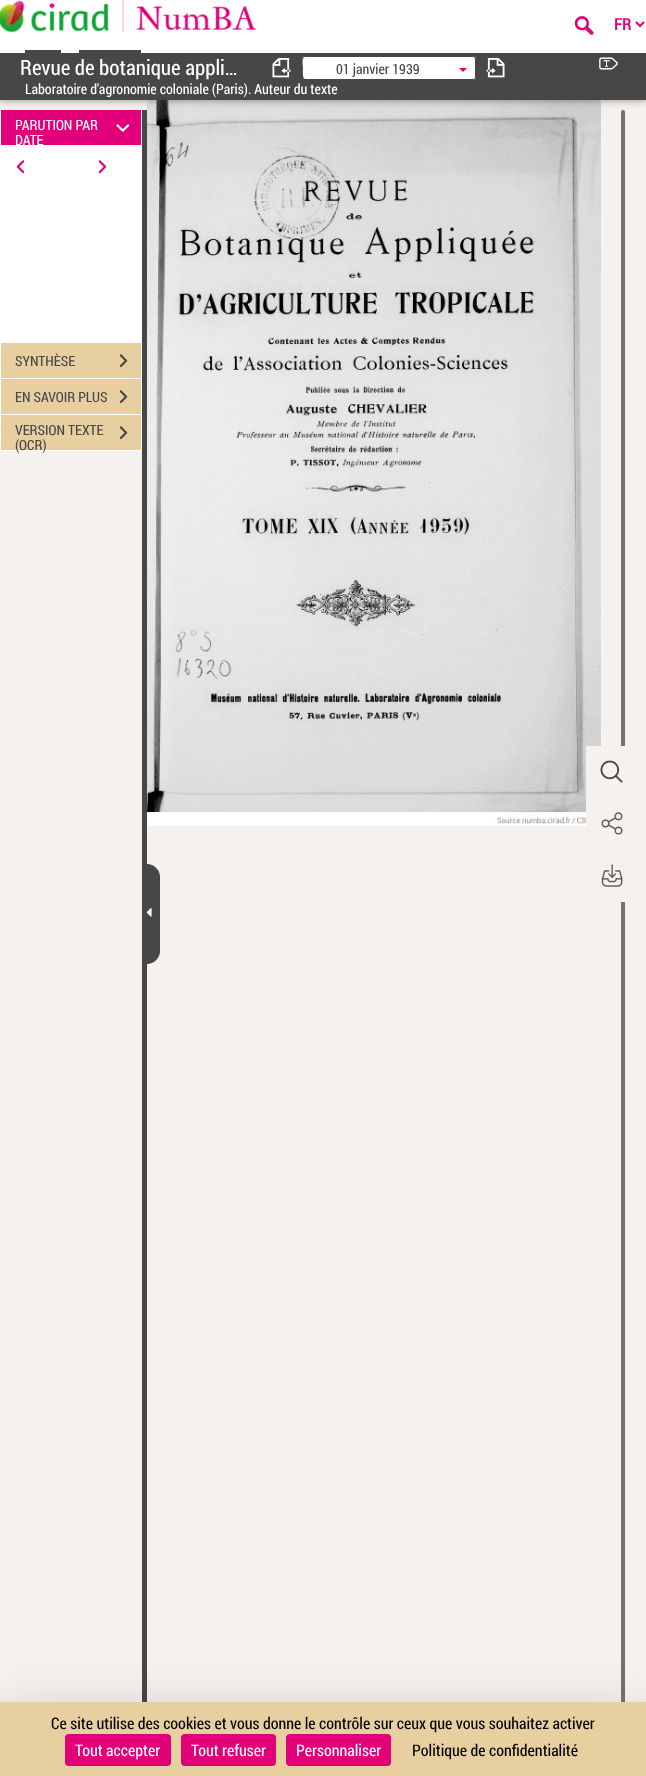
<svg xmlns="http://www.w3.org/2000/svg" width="646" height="1776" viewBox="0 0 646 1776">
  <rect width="100%" height="100%" fill="#f5f1ee"/>
  <image x="147" y="100" width="454" height="726" href="img/11.png"/>
  <rect x="621" y="110" width="4" height="1646" rx="2" fill="#737271"/>
  <path d="M0 52h646v50H0z" fill="#0000001f" filter="blur(5px)"/>
  <path d="M0 52h646v50H0z" fill="#00000029" filter="blur(2px)"/>
  <path d="M0 0h646v53H0z" fill="#fff"/>
  <image x="0" y="0" width="256" height="33" href="img/1.png"/>
  <image x="574" y="16" width="20" height="19" href="img/2.png"/>
  <path d="M636 22L640 26L644 22" fill="none" stroke="#e2007a" stroke-width="2"/>
  <path d="M0 53h646v47H0z" fill="#474747"/>
  <path d="M25 50h36v3H25z" fill="#474747"/>
  <path d="M79 50h62v3H79z" fill="#474747"/>
  <image x="272" y="58" width="19" height="20" href="img/3.png"/>
  <path d="M305 56H452V80H305C303.5 80 302 78.5 302 77V59C302 57.5 303.5 56 305 56Z" fill="#fff"/>
  <path d="M305 56H452V80H304C300 79 302 71 302 68C302 65 300 56 305 56ZM305 57H452V79H305C302 78 303 70 303 68C303 66 301 57 305 57Z" fill="#474747" fill-rule="evenodd"/>
  <path d="M451 56H473C474.5 56 476 57.5 476 59V77C476 78.5 474.5 80 473 80H451Z" fill="#fff"/>
  <path d="M451 56H473C474.5 56 476 57.5 476 59V77C476 78.5 474.5 80 473 80H451ZM451 57H473C474 57 475 58 475 59V77C475 78 474 79 473 79H451Z" fill="#474747" fill-rule="evenodd"/>
  <path d="M459 68H467L463 72Z" fill="#e2007a"/>
  <image x="486" y="58" width="19" height="20" href="img/4.png"/>
  <image x="599" y="57" width="19" height="13" href="img/5.png"/>
  <path d="M142 110h5v1592H142z" fill="#474747"/>
  <path d="M0 110h142v341H0z" fill="#fff"/>
  <path d="M1 110h140v35H1z" fill="#e2007a"/>
  <image x="116" y="124" width="14" height="8" href="img/6.png"/>
  <image x="16" y="160" width="9" height="14" href="img/7.png"/>
  <image x="98" y="160" width="9" height="14" href="img/8.png"/>
  <path d="M1 343h140v35H1z" fill="#e7cfa0"/>
  <image x="119" y="354" width="9" height="14" href="img/9.png"/>
  <path d="M1 379h140v35H1z" fill="#e7cfa0"/>
  <image x="119" y="390" width="9" height="14" href="img/9.png"/>
  <path d="M1 415h140v35H1z" fill="#e7cfa0"/>
  <image x="119" y="426" width="9" height="14" href="img/9.png"/>
  <path d="M147.5 864.5H147C154 864.5 159.5 870 159.5 877V951C159.5 958 154 963.5 147 963.5H147.5Z" fill="#474747" stroke="#474747"/>
  <image x="146" y="908" width="6" height="9" href="img/10.png"/>
  <path d="M586 746h39v104H586z" fill="#f5f1ee"/>
  <image x="600" y="760" width="23" height="23" href="img/12.png"/>
  <image x="601" y="812" width="22" height="23" href="img/13.png"/>
  <path d="M621 850h4v52H621z" fill="#f5f1ee"/>
  <image x="601" y="864" width="22" height="23" href="img/14.png"/>
  <path d="M0 1722h646v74H0z" fill="#00000040" filter="blur(30px)"/>
  <path d="M0 1702h646v74H0z" fill="#e7cfa0"/>
  <rect x="65" y="1734" width="106" height="32" rx="4" fill="#e20079"/>
  <rect x="181" y="1734" width="95" height="32" rx="4" fill="#e20079"/>
  <rect x="286" y="1734" width="105" height="32" rx="4" fill="#e20079"/>
  <text x="614" y="30" font-family="Roboto Condensed" font-size="16" font-weight="bold" fill="#e2007a">FR</text>
  <text x="20" y="75" font-family="Roboto Condensed" font-size="21" fill="#fff">Revue de botanique appli…</text>
  <text x="25" y="94" font-family="Roboto Condensed" font-size="14" fill="#fff">Laboratoire d'agronomie coloniale (Paris). Auteur du texte</text>
  <text x="336" y="74" font-family="Roboto Condensed" font-size="14" fill="#474747">01 janvier 1939</text>
  <g font-family="Roboto Condensed" font-size="14" fill="#fff">
    <text x="15" y="130">PARUTION PAR</text>
    <text x="15" y="145">DATE</text>
  </g>
  <g font-family="Roboto Condensed" font-size="14" fill="#474747">
    <text x="15" y="366">SYNTHÈSE</text>
    <text x="15" y="402">EN SAVOIR PLUS</text>
    <text x="15" y="435">VERSION TEXTE</text>
    <text x="15" y="450">(OCR)</text>
  </g>
  <text x="51" y="1729" font-family="Roboto Condensed" font-size="16" fill="#000">Ce site utilise des cookies et vous donne le contrôle sur ceux que vous souhaitez activer</text>
  <g font-family="Roboto Condensed" font-size="16" fill="#fff">
    <text x="75" y="1756">Tout accepter</text>
    <text x="191" y="1756">Tout refuser</text>
    <text x="296" y="1756">Personnaliser</text>
  </g>
  <text x="412" y="1756" font-family="Roboto Condensed" font-size="16" fill="#000">Politique de confidentialité</text>
</svg>
